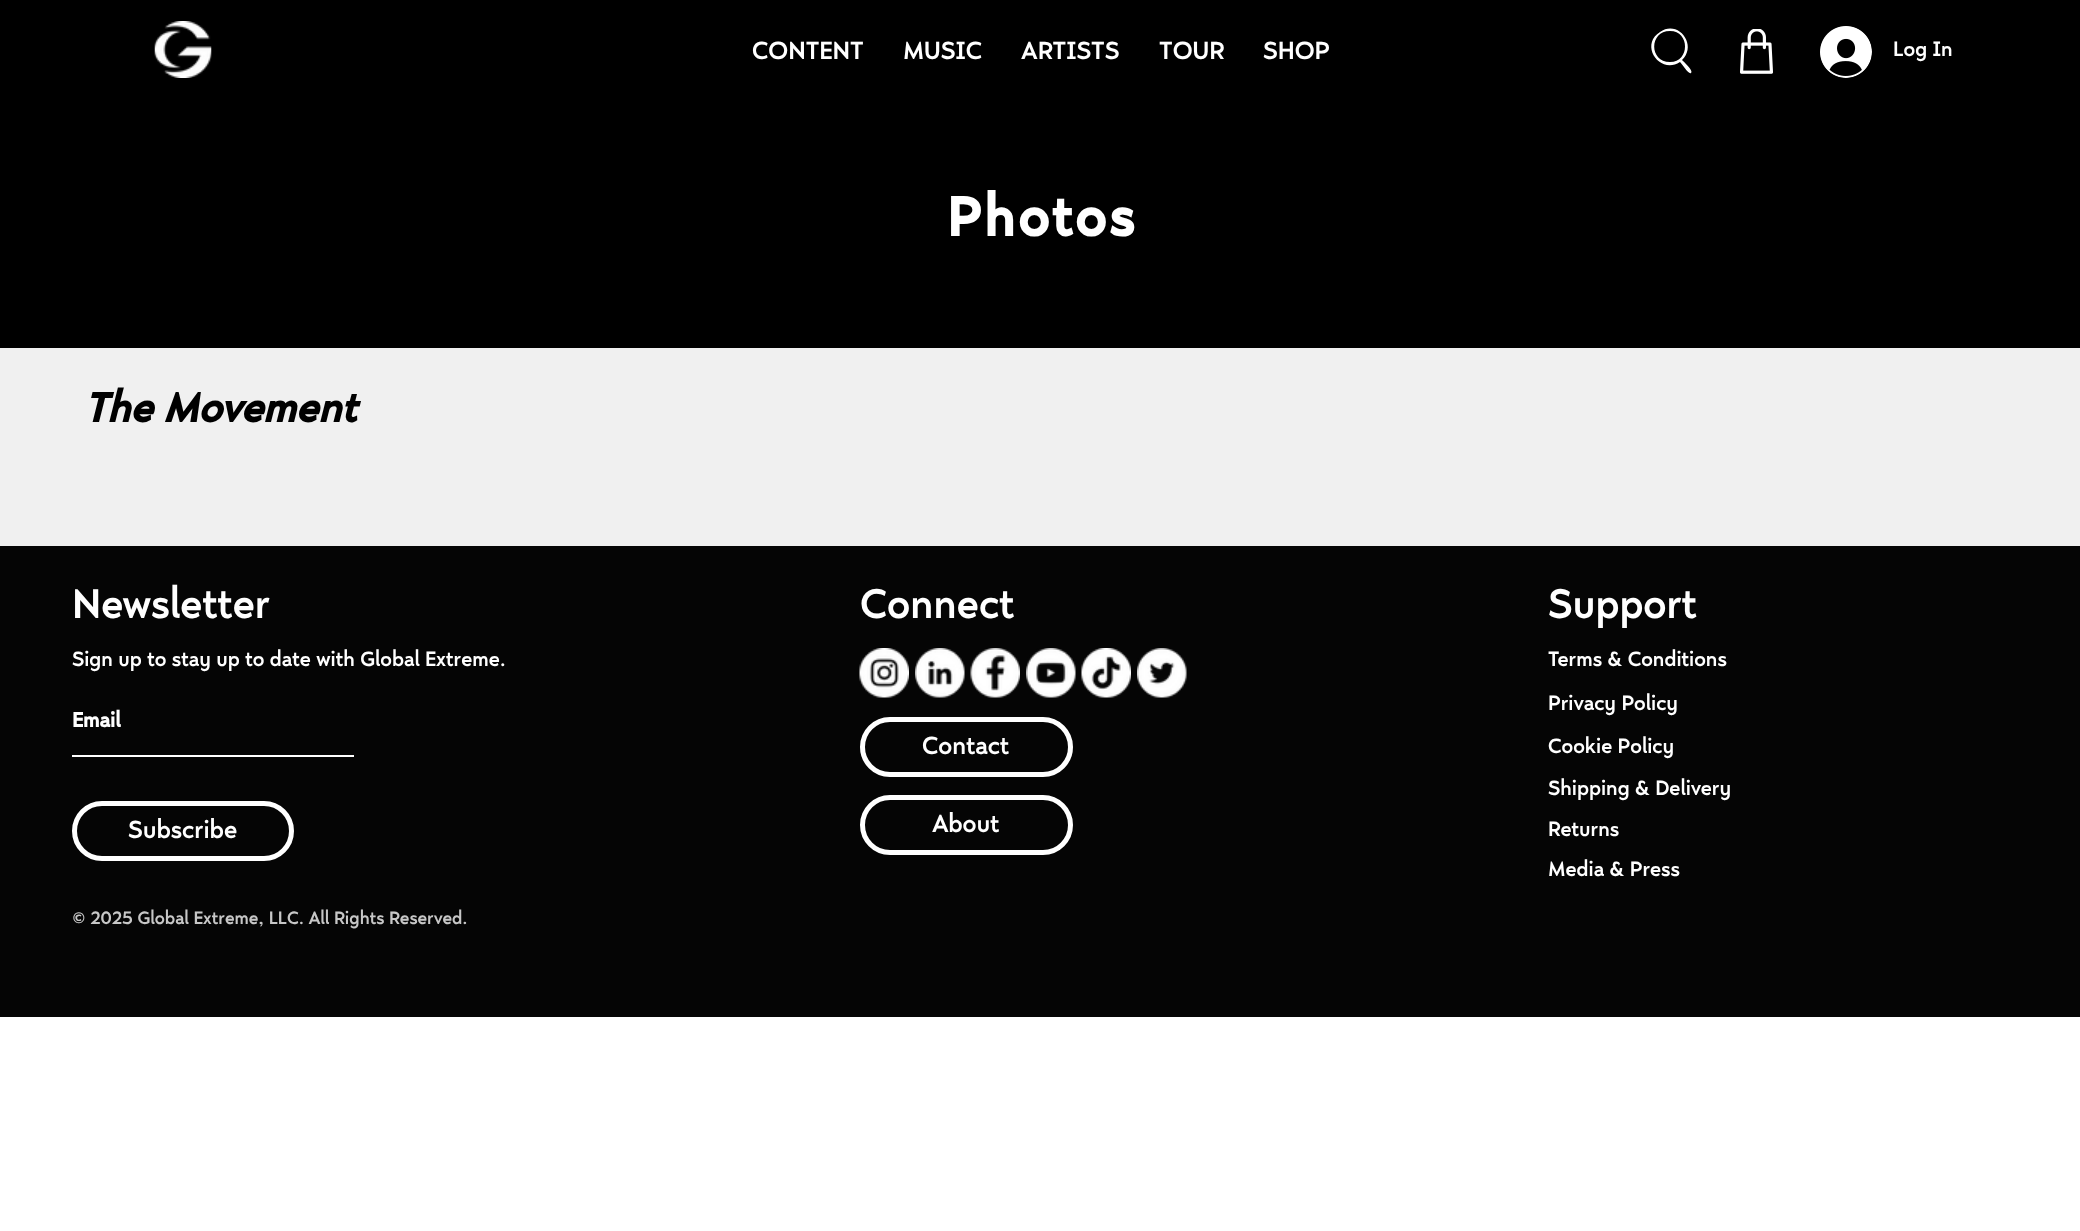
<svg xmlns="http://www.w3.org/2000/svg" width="2080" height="1231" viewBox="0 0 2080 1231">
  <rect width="100%" height="100%" fill="#fff"/>
  <path d="M0 0h2080v348H0z" fill="#000"/>
  <image x="154" y="21" width="58" height="57" href="img/1.png"/>
  <path d="M1670 62C1649 62 1649 31 1670 31C1690 31 1690 62 1670 62ZM1680 62C1682 64 1689 75 1691 73C1694 71 1684 62 1682 60C1698 45 1678 19 1660 32C1639 45 1660 75 1680 62Z" fill="#fff"/>
  <image x="1740" y="29" width="33" height="45" href="img/2.png"/>
  <image x="1820" y="26" width="52" height="52" href="img/3.png"/>
  <path d="M0 348h2080v198H0z" fill="#f0f0f0"/>
  <path d="M0 546h2080v471H0z" fill="#050505"/>
  <path d="M72 755h282v2H72z" fill="#fff"/>
  <rect x="74.5" y="803.5" width="217" height="55" rx="27.5" fill="none" stroke="#fff" stroke-width="5"/>
  <image x="859" y="648" width="50" height="50" href="img/4.png"/>
  <image x="915" y="648" width="50" height="50" href="img/5.png"/>
  <image x="970" y="648" width="50" height="50" href="img/6.png"/>
  <image x="1026" y="648" width="50" height="50" href="img/7.png"/>
  <image x="1081" y="648" width="50" height="50" href="img/8.png"/>
  <image x="1137" y="648" width="50" height="50" href="img/9.png"/>
  <rect x="862.5" y="719.5" width="208" height="55" rx="27.5" fill="none" stroke="#fff" stroke-width="5"/>
  <rect x="862.5" y="797.5" width="208" height="55" rx="27.5" fill="none" stroke="#fff" stroke-width="5"/>
  <g font-family="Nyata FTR" font-size="27" fill="#fff">
    <text x="752" y="59">CONTENT</text>
    <text x="903" y="59">MUSIC</text>
    <text x="1021" y="59">ARTISTS</text>
    <text x="1159" y="59">TOUR</text>
    <text x="1263" y="59">SHOP</text>
  </g>
  <text x="1893" y="56" font-family="Nyata FTR" font-size="22.5" fill="#fff">Log In</text>
  <text x="947" y="236" font-family="Nyata FTR" font-size="60" font-weight="bold" letter-spacing="3" fill="#fff">Photos</text>
  <text x="84" y="422" font-family="Nyata FTR" font-size="45" font-weight="bold" font-style="italic" fill="#000">The Movement</text>
  <text x="72" y="618" font-family="Nyata FTR" font-size="45" fill="#fff">Newsletter</text>
  <text x="72" y="666" font-family="Nyata FTR" font-size="22.5" fill="#fff">Sign up to stay up to date with Global Extreme.</text>
  <text x="72" y="727" font-family="Nyata FTR" font-size="22.5" font-weight="bold" fill="#fff">Email</text>
  <text x="128" y="838" font-family="Nyata FTR" font-size="27" fill="#fff">Subscribe</text>
  <text x="72" y="924" font-family="Nyata FTR" font-size="19.5" fill="#c7c7c7">© 2025 Global Extreme, LLC. All Rights Reserved.</text>
  <text x="860" y="618" font-family="Nyata FTR" font-size="45" fill="#fff">Connect</text>
  <g font-family="Nyata FTR" font-size="27" fill="#fff">
    <text x="922" y="754">Contact</text>
    <text x="932" y="832">About</text>
  </g>
  <text x="1548" y="618" font-family="Nyata FTR" font-size="45" fill="#fff">Support</text>
  <g font-family="Nyata FTR" font-size="22.5" fill="#fff">
    <text x="1548" y="666">Terms &amp; Conditions</text>
    <text x="1548" y="710">Privacy Policy</text>
    <text x="1548" y="753">Cookie Policy</text>
    <text x="1548" y="795">Shipping &amp; Delivery</text>
    <text x="1548" y="836">Returns</text>
    <text x="1548" y="876">Media &amp; Press</text>
  </g>
</svg>
